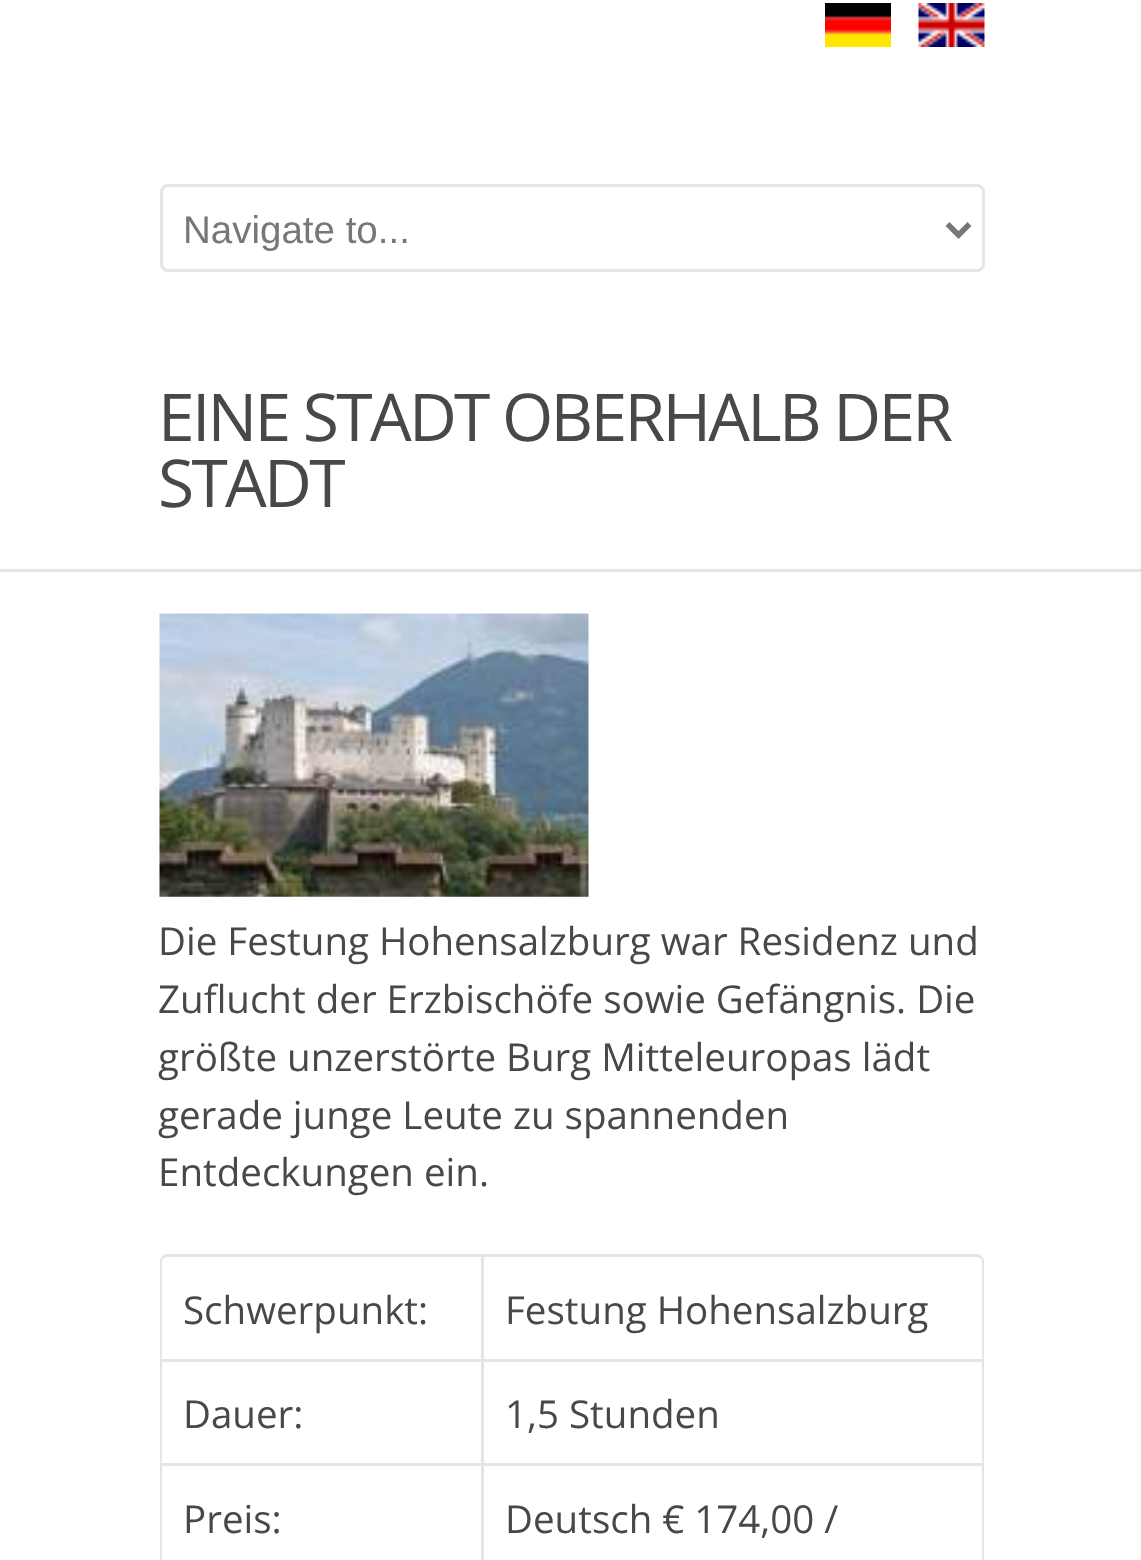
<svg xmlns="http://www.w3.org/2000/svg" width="1141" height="1560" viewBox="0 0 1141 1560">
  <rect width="100%" height="100%" fill="#fff"/>
  <image x="825" y="3" width="66" height="44" href="img/1.png"/>
  <image x="918" y="3" width="67" height="44" href="img/2.png"/>
  <rect x="161.5" y="185.5" width="822" height="85" rx="6.5" fill="none" stroke="#e5e5e5" stroke-width="3"/>
  <path d="M947.5 224L958.5 235L969.5 224" fill="none" stroke="#777" stroke-width="5.5"/>
  <path d="M0 569h1141v3H0z" fill="#e5e5e5"/>
  <image x="159" y="613" width="430" height="284" href="img/3.png"/>
  <path d="M168 1254H976C981 1254 984 1258 984 1262V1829C984 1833 981 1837 976 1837H168C163 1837 160 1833 160 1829V1262C160 1258 163 1254 168 1254ZM168 1257H976C979 1257 982 1259 982 1262V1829C982 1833 979 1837 976 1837H168C165 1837 162 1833 162 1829V1262C162 1259 165 1257 168 1257Z" fill="#e5e5e5" fill-rule="evenodd"/>
  <path d="M481 1257h3v104H481z" fill="#e5e5e5"/>
  <path d="M162 1359h820v3H162z" fill="#e5e5e5"/>
  <path d="M481 1361h3v199H481z" fill="#e5e5e5"/>
  <path d="M162 1463h820v3H162z" fill="#e5e5e5"/>
  <text x="183" y="243" font-family="Liberation Sans" font-size="38.5" fill="#777">Navigate to...</text>
  <g font-family="Open Sans" font-size="66" letter-spacing="-2.75" fill="#484848">
    <text x="158" y="441">EINE STADT OBERHALB DER</text>
    <text x="158" y="507">STADT</text>
  </g>
  <g font-family="Open Sans" font-size="38.5" fill="#484848">
    <text x="158" y="955">Die Festung Hohensalzburg war Residenz und</text>
    <text x="158" y="1013">Zuflucht der Erzbischöfe sowie Gefängnis. Die</text>
    <text x="158" y="1071">größte unzerstörte Burg Mitteleuropas lädt</text>
    <text x="158" y="1129">gerade junge Leute zu spannenden</text>
    <text x="158" y="1186">Entdeckungen ein.</text>
    <text x="183" y="1324">Schwerpunkt:</text>
    <text x="505" y="1324">Festung Hohensalzburg</text>
    <text x="183" y="1428">Dauer:</text>
    <text x="505" y="1428">1,5 Stunden</text>
    <text x="183" y="1533">Preis:</text>
    <text x="505" y="1533">Deutsch € 174,00 /</text>
  </g>
</svg>
